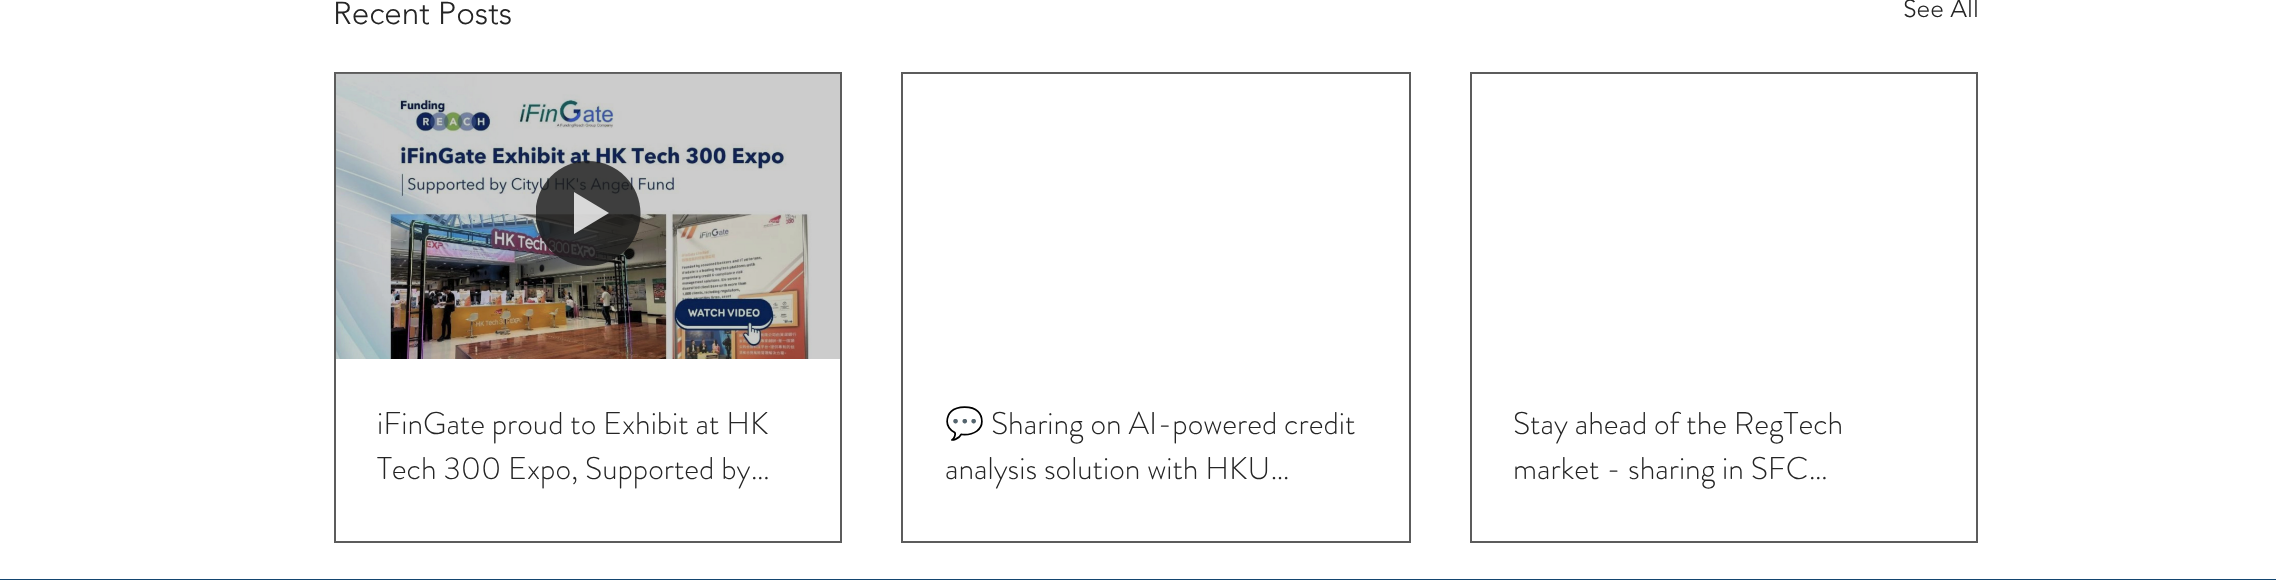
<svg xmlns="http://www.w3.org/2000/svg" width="2276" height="580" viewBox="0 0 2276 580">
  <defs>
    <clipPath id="clip1"><path d="M536 161h105v105H536z"/></clipPath>
  </defs>
  <rect width="100%" height="100%" fill="#fff"/>
  <path d="M335 73h506v469H335z" fill="none" stroke="#5c5c5c" stroke-width="2"/>
  <image x="336" y="73" width="504" height="286" href="img/1.png"/>
  <g clip-path="url(#clip1)">
    <circle cx="588" cy="213.5" r="52.5" fill="#1a1a1acc"/>
  </g>
  <path d="M574 192V234L609 213Z" fill="#ffffffcc"/>
  <path d="M902 73h508v469H902z" fill="none" stroke="#5c5c5c" stroke-width="2"/>
  <path d="M1471 73h506v469H1471z" fill="none" stroke="#5c5c5c" stroke-width="2"/>
  <path d="M0 579h2276v1H0z" fill="#134570"/>
  <text x="333" y="24" font-family="'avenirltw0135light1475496'" font-size="31.5" font-weight="300" fill="#252525">Recent Posts</text>
  <text x="1903" y="17" font-family="'avenirltw0135light1475496'" font-size="24.5" font-weight="300" fill="#252525">See All</text>
  <g font-family="'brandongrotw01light'" font-size="31.5" font-weight="300" fill="#252525">
    <text x="377" y="434">iFinGate proud to Exhibit at HK</text>
    <text x="377" y="479">Tech 300 Expo, Supported by…</text>
  </g>
  <text x="945" y="434" font-family="Noto Color Emoji" font-size="31.5" fill="#252525">💬</text>
  <g font-family="'brandongrotw01light'" font-size="31.5" font-weight="300" fill="#252525">
    <text x="991" y="434">Sharing on AI-powered credit</text>
    <text x="945" y="479">analysis solution with HKU…</text>
    <text x="1513" y="434">Stay ahead of the RegTech</text>
    <text x="1513" y="479">market - sharing in SFC…</text>
  </g>
</svg>
